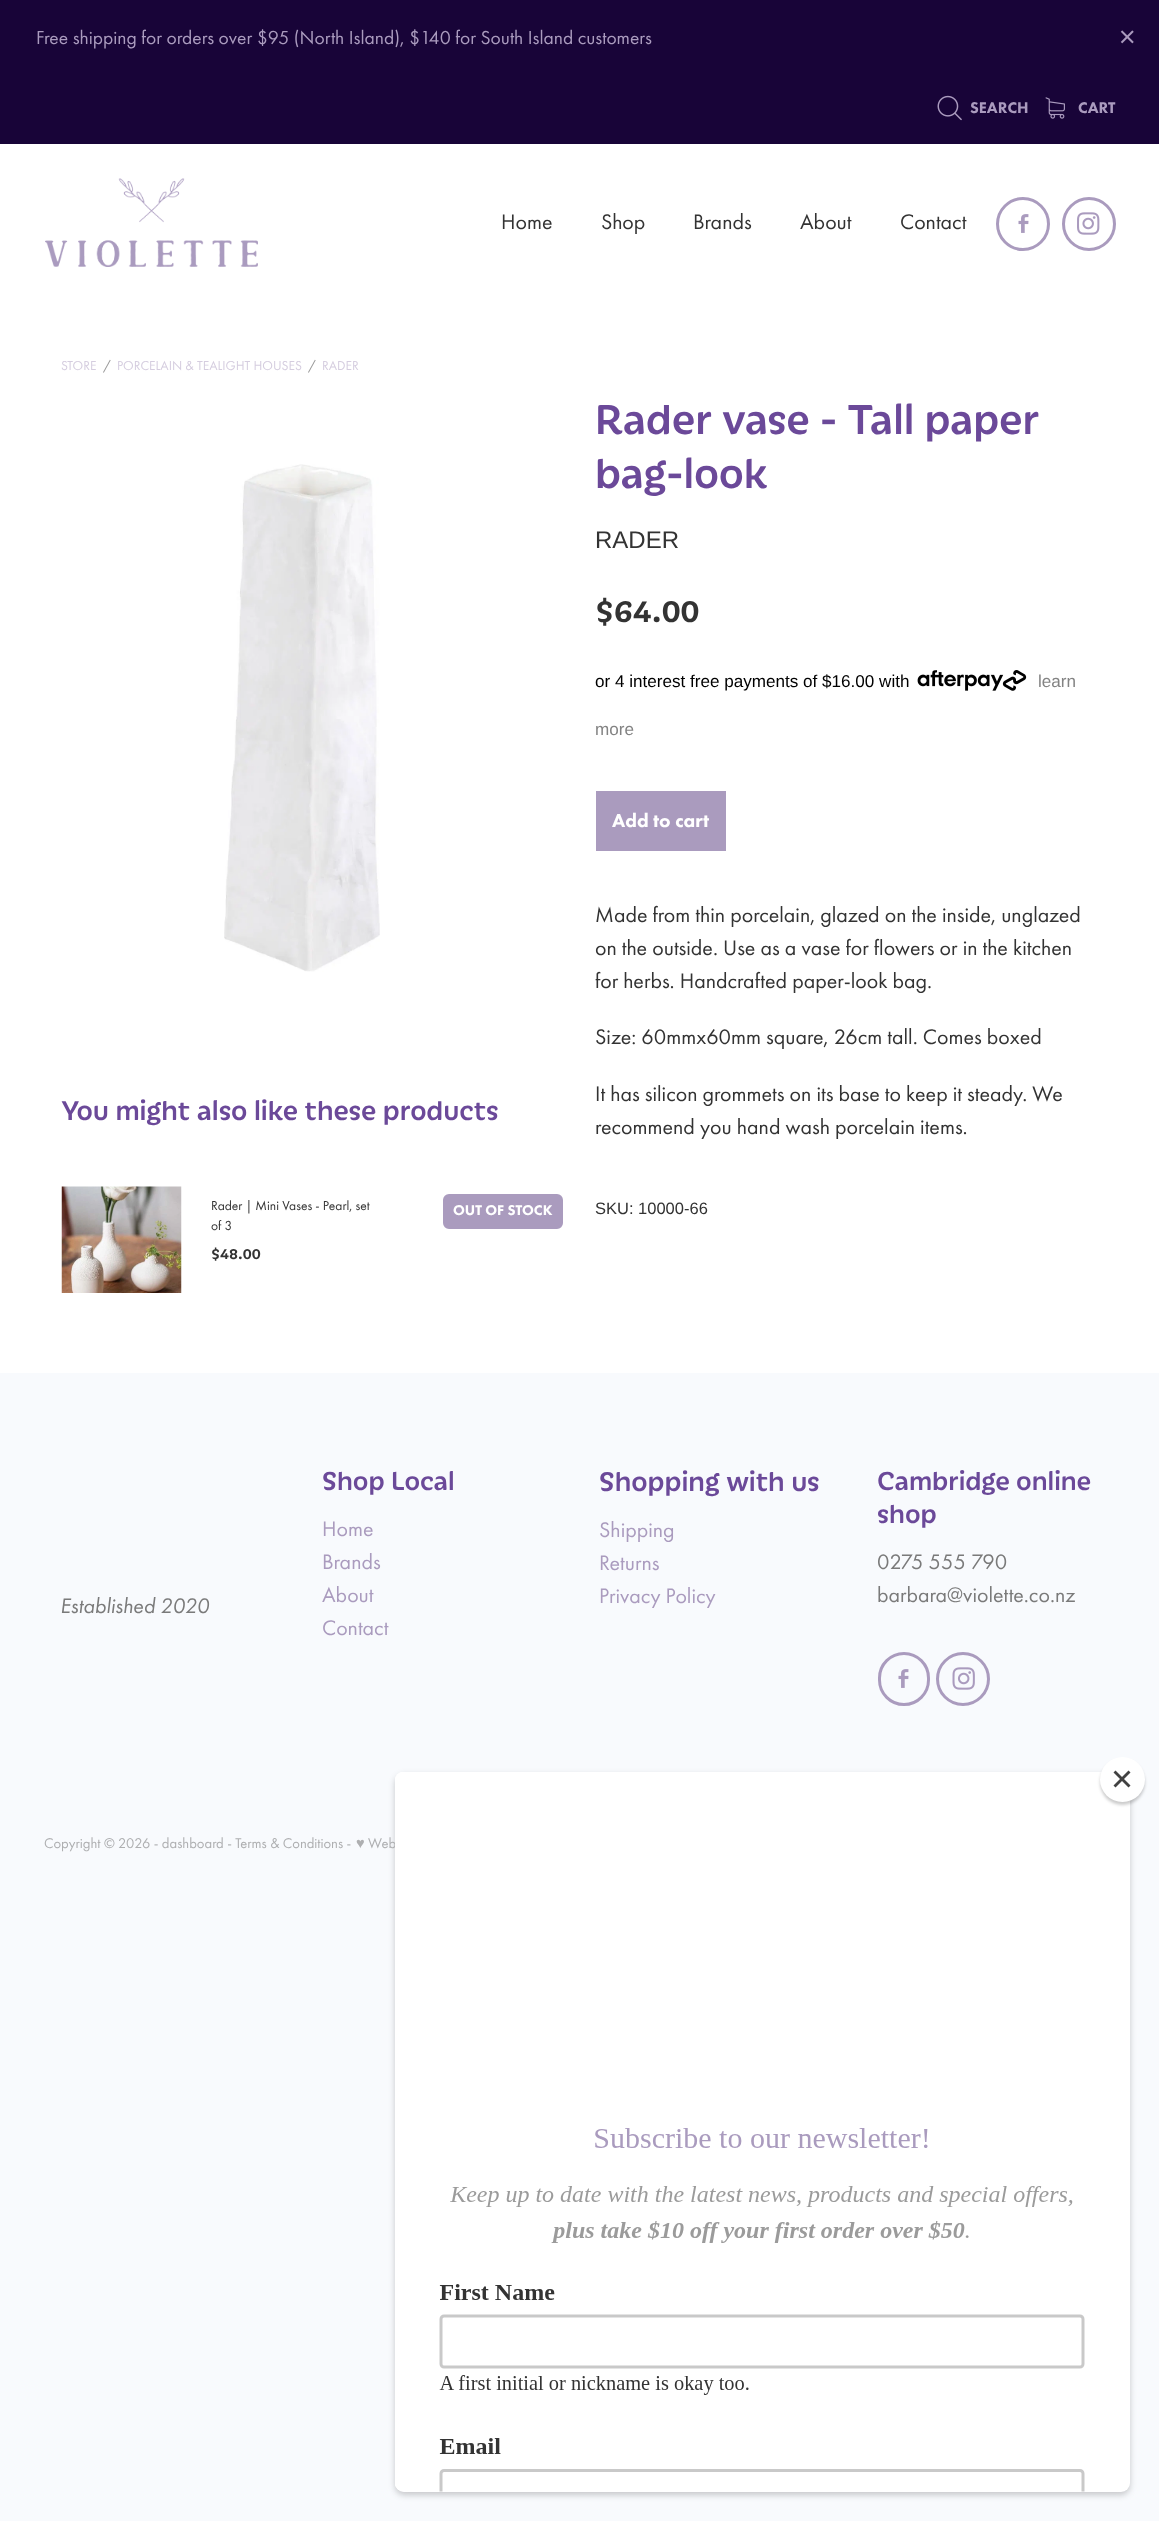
<svg xmlns="http://www.w3.org/2000/svg" width="1159" height="2521" viewBox="0 0 1159 2521">
  <rect width="100%" height="100%" fill="#fff"/>
  <path d="M0 0h1159v144H0z" fill="#180438"/>
  <image x="1120" y="30" width="14" height="14" href="img/1.png"/>
  <image x="937" y="95" width="25" height="26" href="img/2.png"/>
  <image x="1045" y="97" width="20" height="22" href="img/3.png"/>
  <image x="45" y="178" width="213" height="89" href="img/4.png"/>
  <circle cx="1023" cy="224" r="25.5" fill="none" stroke="#aa9bbe" stroke-width="3"/>
  <image x="1018" y="214" width="11" height="19" href="img/5.png"/>
  <circle cx="1089" cy="224" r="25.5" fill="none" stroke="#aa9bbe" stroke-width="3"/>
  <image x="1077" y="212" width="23" height="23" href="img/6.png"/>
  <image x="224" y="464" width="156" height="508" href="img/7.png"/>
  <image x="61" y="1186" width="121" height="107" href="img/8.png"/>
  <rect x="444" y="1195" width="118" height="33" rx="5" fill="#aa9bbe" stroke="#aa9bbe" stroke-width="2"/>
  <image x="917" y="670" width="110" height="21" href="img/9.png"/>
  <path d="M596 791h130v60H596z" fill="#aa9bbe"/>
  <path d="M0 1373h1159v525H0z" fill="#f8fafd"/>
  <rect x="879.5" y="1653.5" width="49" height="51" rx="24.5" fill="none" stroke="#aa9bbe" stroke-width="3"/>
  <image x="898" y="1669" width="11" height="19" href="img/10.png"/>
  <circle cx="963" cy="1679" r="25.5" fill="none" stroke="#aa9bbe" stroke-width="3"/>
  <image x="952" y="1667" width="23" height="23" href="img/11.png"/>
  <path d="M-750 1805V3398H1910V1805H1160V1898H0V1805Z" fill="#f8fafd"/>
  <rect x="395" y="1775" width="735" height="720" rx="9" fill="#00000033" filter="blur(3px)"/>
  <text x="36" y="44" font-family="Futura PT" font-size="19.5" fill="#aa9bbe">Free shipping for orders over $95 (North Island), $140 for South Island customers</text>
  <g font-family="Futura PT" font-size="16" font-weight="900" fill="#aa9bbe">
    <text x="970" y="113">SEARCH</text>
    <text x="1078" y="113">CART</text>
  </g>
  <g font-family="Futura PT" font-size="21.9" fill="#333">
    <text x="501" y="229">Home</text>
    <text x="601" y="229">Shop</text>
    <text x="693" y="229">Brands</text>
    <text x="800" y="229">About</text>
    <text x="900" y="229">Contact</text>
  </g>
  <text x="61" y="370" font-family="Futura PT" font-size="13.4" fill="#d5cddf">STORE</text>
  <text x="103" y="370" font-family="Futura PT" font-size="13.4" fill="#999">/</text>
  <text x="117" y="370" font-family="Futura PT" font-size="13.4" fill="#d5cddf">PORCELAIN &amp; TEALIGHT HOUSES</text>
  <text x="308" y="370" font-family="Futura PT" font-size="13.4" fill="#999">/</text>
  <text x="322" y="370" font-family="Futura PT" font-size="13.4" fill="#d5cddf">RADER</text>
  <text x="61" y="1120" font-family="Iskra" font-size="29.25" font-weight="500" fill="#6b4999">You might also like these products</text>
  <g font-family="Futura PT" font-size="13.5" fill="#333">
    <text x="211" y="1210">Rader | Mini Vases - Pearl, set</text>
    <text x="211" y="1230">of 3</text>
  </g>
  <text x="211" y="1259" font-family="Iskra" font-size="17.1" font-weight="500" fill="#333">$48.00</text>
  <text x="453" y="1215" font-family="Futura PT" font-size="14.6" font-weight="900" fill="#fff">OUT OF STOCK</text>
  <g font-family="Iskra" font-size="45" font-weight="500" fill="#6b4999">
    <text x="595" y="434">Rader vase - Tall paper</text>
    <text x="595" y="488">bag-look</text>
  </g>
  <text x="595" y="548" font-family="Liberation Sans" font-size="24" fill="#333">RADER</text>
  <text x="595" y="622" font-family="Iskra" font-size="36" font-weight="500" fill="#333">$64.00</text>
  <text x="595" y="687" font-family="Liberation Sans" font-size="17.1" fill="#000">or 4 interest free payments of $16.00 with</text>
  <g font-family="Liberation Sans" font-size="17.1" fill="#838383">
    <text x="1038" y="687">learn</text>
    <text x="595" y="735">more</text>
  </g>
  <text x="612" y="827" font-family="Futura PT" font-size="19.5" font-weight="900" fill="#fff">Add to cart</text>
  <g font-family="Futura PT" font-size="21.9" fill="#333">
    <text x="595" y="922">Made from thin porcelain, glazed on the inside, unglazed</text>
    <text x="595" y="955">on the outside. Use as a vase for flowers or in the kitchen</text>
    <text x="595" y="988">for herbs. Handcrafted paper-look bag.</text>
    <text x="595" y="1044">Size: 60mmx60mm square, 26cm tall. Comes boxed</text>
    <text x="595" y="1101">It has silicon grommets on its base to keep it steady. We</text>
    <text x="595" y="1134">recommend you hand wash porcelain items.</text>
  </g>
  <text x="595" y="1214" font-family="Liberation Sans" font-size="16.5" fill="#333">SKU: 10000-66</text>
  <text x="322" y="1490" font-family="Iskra" font-size="28" font-weight="500" fill="#6b4999">Shop Local</text>
  <g font-family="Futura PT" font-size="21.9" fill="#aa9bbe">
    <text x="322" y="1536">Home</text>
    <text x="322" y="1569">Brands</text>
    <text x="322" y="1602">About</text>
    <text x="322" y="1635">Contact</text>
  </g>
  <text x="599" y="1491" font-family="Iskra" font-size="29.25" font-weight="500" fill="#6b4999">Shopping with us</text>
  <g font-family="Futura PT" font-size="21.9" fill="#aa9bbe">
    <text x="599" y="1537">Shipping</text>
    <text x="599" y="1570">Returns</text>
    <text x="599" y="1603">Privacy Policy</text>
  </g>
  <g font-family="Iskra" font-size="28" font-weight="500" fill="#6b4999">
    <text x="877" y="1490">Cambridge online</text>
    <text x="877" y="1523">shop</text>
  </g>
  <g font-family="Futura PT" font-size="21.9" fill="#7a7a7a">
    <text x="877" y="1569">0275 555 790</text>
    <text x="877" y="1602">barbara@violette.co.nz</text>
  </g>
  <text x="60" y="1613" font-family="Futura PT" font-size="21.9" font-style="italic" fill="#7a7a7a">Established 2020</text>
  <text x="44" y="1848" font-family="Futura PT" font-size="14.6" fill="#aeafb1">Copyright © 2026 - dashboard - Terms &amp; Conditions -</text>
  <text x="356" y="1848" font-family="Liberation Sans" font-size="14.6" fill="#aeafb1">♥</text>
  <text x="368" y="1848" font-family="Futura PT" font-size="14.6" fill="#aeafb1">Web</text>
  <rect x="395" y="1772" width="735" height="720" rx="9" fill="#fff"/>
  <rect x="1100" y="1760" width="45" height="45" rx="22.5" fill="#00000033" filter="blur(1.5px)"/>
  <circle cx="1122.5" cy="1779.5" r="22.5" fill="#fff"/>
  <path d="M1128.5 1770.5L1130.5 1772.5L1115.5 1787.5L1113.5 1785.5Z" fill="#414141"/>
  <path d="M1113.5 1772.5L1115.5 1770.5L1130.5 1785.5L1128.5 1787.5Z" fill="#414141"/>
  <image x="395" y="1772" width="690" height="720" href="img/12.png"/>
</svg>
